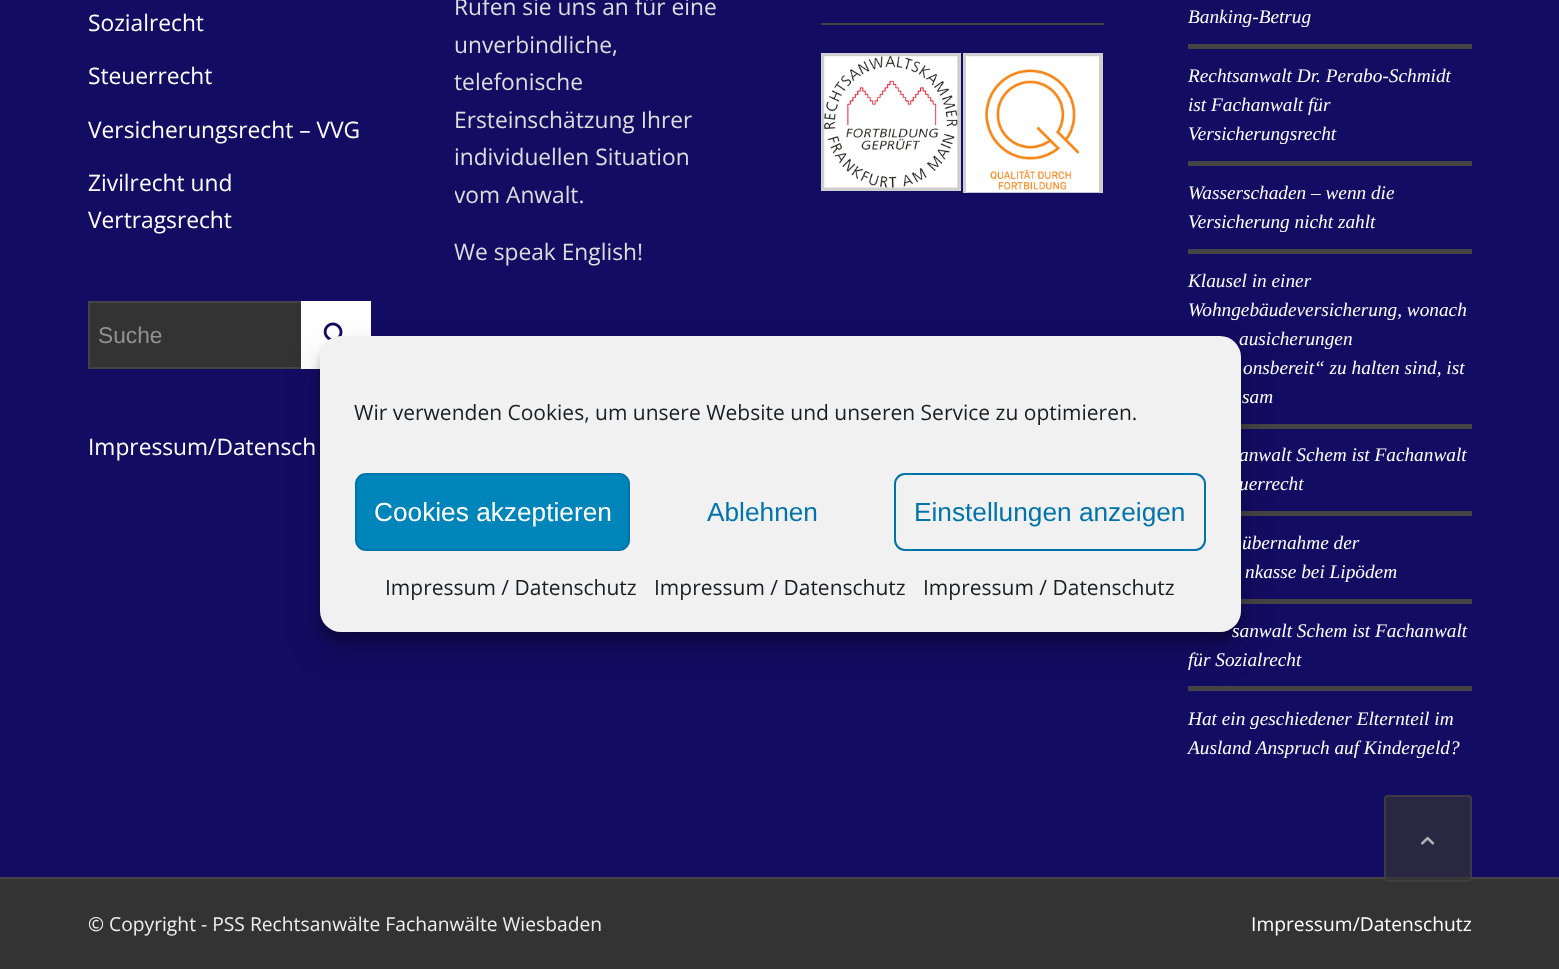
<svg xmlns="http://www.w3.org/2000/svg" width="1559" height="969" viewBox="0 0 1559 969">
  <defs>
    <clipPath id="clip1"><path d="M821 0h283v193H821z"/></clipPath>
    <clipPath id="clip2"><path d="M455 0h284v291H455z"/></clipPath>
  </defs>
  <rect width="100%" height="100%" fill="#130c63"/>
  <path d="M90 303h211v64H90z" fill="#333"/>
  <path d="M89 302h281v66H89z" fill="none" stroke="#444" stroke-width="2"/>
  <path d="M301 301h70v68H301z" fill="#fff"/>
  <image x="323" y="322" width="20" height="19" href="img/1.png"/>
  <path d="M821 23h283v2H821z" fill="#444"/>
  <path d="M823 55h136v134H823z" fill="none" stroke="#cfcfcf" stroke-width="4"/>
  <image x="824" y="56" width="134" height="132" href="img/2.png"/>
  <g clip-path="url(#clip1)">
    <path d="M965 55h136v164H965z" fill="none" stroke="#cfcfcf" stroke-width="4"/>
  </g>
  <image x="966" y="56" width="133" height="137" href="img/3.png"/>
  <path d="M1188 44h284v5H1188z" fill="#444"/>
  <path d="M1188 161h284v5H1188z" fill="#444"/>
  <path d="M1188 249h284v5H1188z" fill="#444"/>
  <path d="M1241 424h231v5H1241z" fill="#444"/>
  <path d="M1241 511h231v5H1241z" fill="#444"/>
  <path d="M1241 599h231v5H1241z" fill="#444"/>
  <path d="M1188 686h284v5H1188z" fill="#444"/>
  <path d="M0 879h1559v90H0z" fill="#333"/>
  <path d="M0 877h1559v2H0z" fill="#444"/>
  <rect x="320" y="347" width="921" height="295" rx="21" fill="#0000003b" filter="blur(5px)"/>
  <rect x="320" y="354" width="921" height="295" rx="21" fill="#00000030" filter="blur(17.5px)"/>
  <rect x="1384" y="795" width="88" height="87" rx="4" fill="#333333b3"/>
  <rect x="1385" y="796" width="86" height="85" rx="3" fill="none" stroke="#444444b3" stroke-width="2"/>
  <image x="1421" y="836" width="14" height="9" href="img/4.png"/>
  <g font-family="Open Sans" font-size="22.75" fill="#fff">
    <text x="88" y="31">Sozialrecht</text>
    <text x="88" y="84">Steuerrecht</text>
    <text x="88" y="138">Versicherungsrecht – VVG</text>
    <text x="88" y="191">Zivilrecht und</text>
    <text x="88" y="228">Vertragsrecht</text>
  </g>
  <text x="98" y="343" font-family="Liberation Sans" font-size="22.75" fill="#919191">Suche</text>
  <text x="88" y="455" font-family="Open Sans" font-size="22.75" fill="#fff">Impressum/Datensch</text>
  <g font-family="Open Sans" font-size="22.75" fill="#ddd">
    <text x="454" y="15">Rufen sie uns an für eine</text>
    <text x="454" y="53">unverbindliche,</text>
    <text x="454" y="90">telefonische</text>
    <text x="454" y="128">Ersteinschätzung Ihrer</text>
    <text x="454" y="165">individuellen Situation</text>
  </g>
  <g clip-path="url(#clip2)">
    <text x="454" y="203" font-family="Open Sans" font-size="22.75" fill="#ddd">vom Anwalt.</text>
  </g>
  <text x="454" y="260" font-family="Open Sans" font-size="22.75" fill="#ddd">We speak English!</text>
  <g font-family="Liberation Serif" font-size="19.3" font-style="italic" fill="#fff">
    <text x="1188" y="23">Banking-Betrug</text>
    <text x="1188" y="82">Rechtsanwalt Dr. Perabo-Schmidt</text>
    <text x="1188" y="111">ist Fachanwalt für</text>
    <text x="1188" y="140">Versicherungsrecht</text>
    <text x="1188" y="199">Wasserschaden – wenn die</text>
    <text x="1188" y="228">Versicherung nicht zahlt</text>
    <text x="1188" y="287">Klausel in einer</text>
    <text x="1188" y="316">Wohngebäudeversicherung, wonach</text>
    <text x="1239" y="345">ausicherungen</text>
    <text x="1243" y="374">onsbereit“ zu halten sind, ist</text>
    <text x="1242" y="403">sam</text>
    <text x="1239" y="461">anwalt Schem ist Fachanwalt</text>
    <text x="1239" y="490">uerrecht</text>
    <text x="1242" y="549">übernahme der</text>
    <text x="1245" y="578">nkasse bei Lipödem</text>
    <text x="1232" y="637">sanwalt Schem ist Fachanwalt</text>
    <text x="1188" y="666">für Sozialrecht</text>
    <text x="1188" y="725">Hat ein geschiedener Elternteil im</text>
    <text x="1188" y="754">Ausland Anspruch auf Kindergeld?</text>
  </g>
  <text x="88" y="931" font-family="Open Sans" font-size="19.25" fill="#eee">© Copyright - PSS Rechtsanwälte Fachanwälte Wiesbaden</text>
  <text x="1251" y="931" font-family="Open Sans" font-size="19.25" fill="#fff">Impressum/Datenschutz</text>
  <rect x="320" y="336" width="921" height="296" rx="21" fill="#f1f1f1"/>
  <text x="354" y="420" font-family="Open Sans" font-size="21" fill="#191e23">Wir verwenden Cookies, um unsere Website und unseren Service zu optimieren.</text>
  <rect x="356" y="474" width="273" height="76" rx="10" fill="#0085ba" stroke="#0073aa" stroke-width="2"/>
  <text x="374" y="521" font-family="Liberation Sans" font-size="26.25" fill="#fff">Cookies akzeptieren</text>
  <text x="707" y="521" font-family="Liberation Sans" font-size="26.25" fill="#0073aa">Ablehnen</text>
  <rect x="895" y="474" width="310" height="76" rx="10" fill="none" stroke="#0073aa" stroke-width="2"/>
  <text x="914" y="521" font-family="Liberation Sans" font-size="26.25" fill="#0073aa">Einstellungen anzeigen</text>
  <g font-family="Open Sans" font-size="21" fill="#191e23">
    <text x="385" y="595">Impressum / Datenschutz</text>
    <text x="654" y="595">Impressum / Datenschutz</text>
    <text x="923" y="595">Impressum / Datenschutz</text>
  </g>
</svg>
